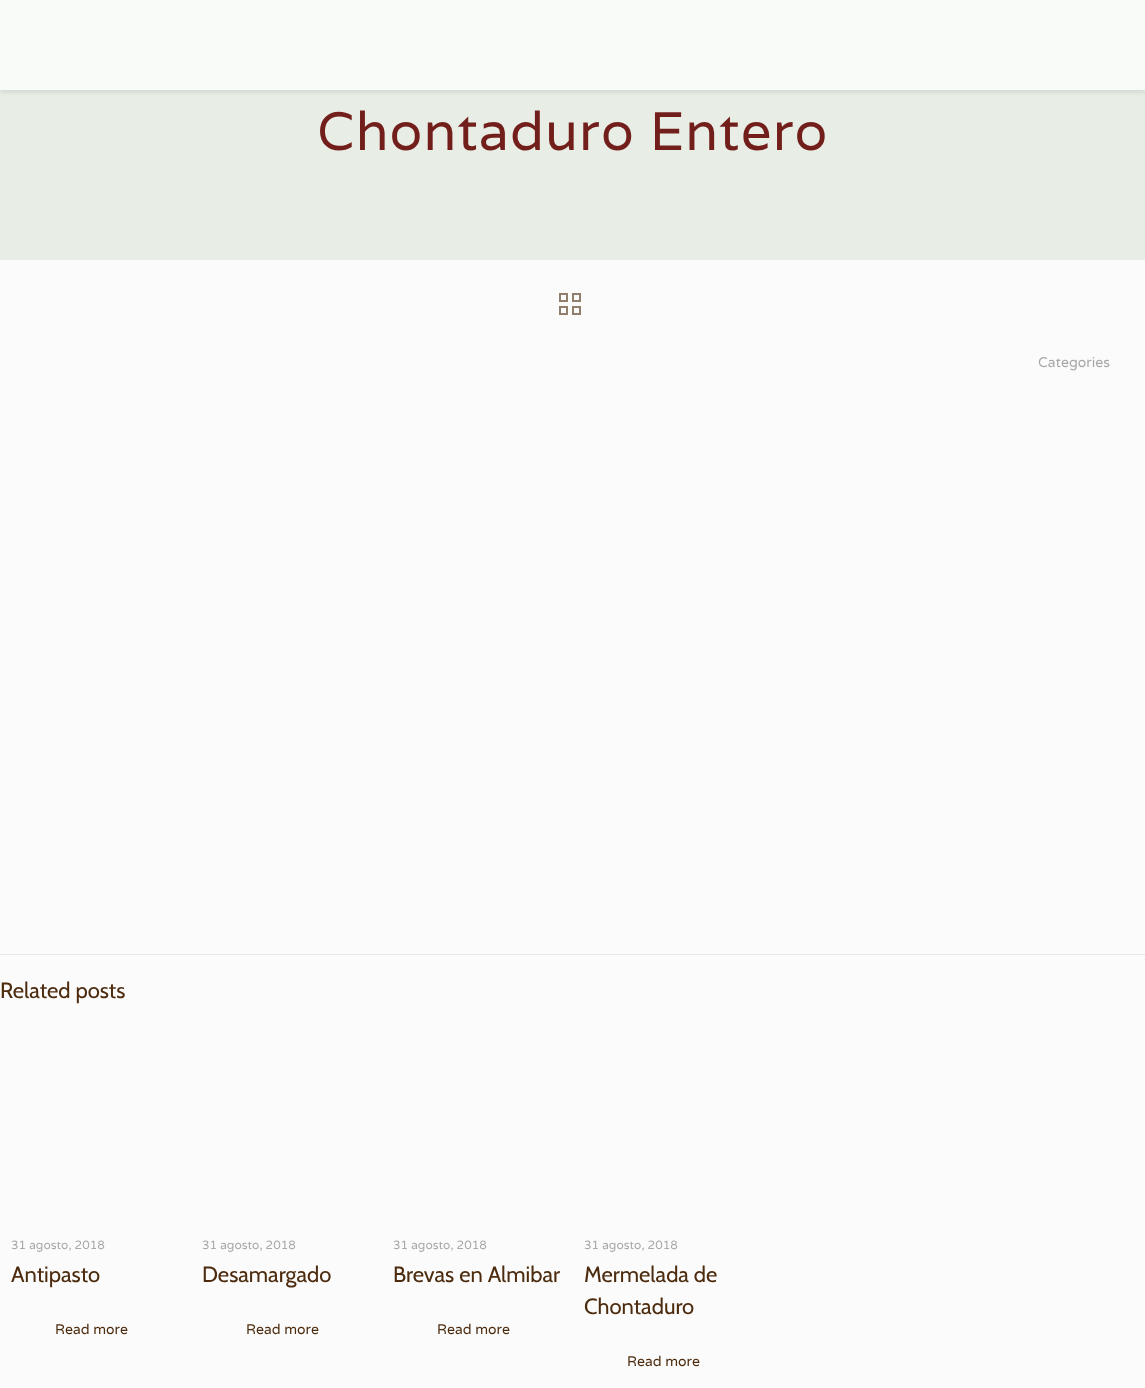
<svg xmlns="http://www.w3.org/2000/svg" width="1145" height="1388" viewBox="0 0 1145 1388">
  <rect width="100%" height="100%" fill="#fafbfa"/>
  <path d="M0 90h1145v170H0z" fill="#e8ede6"/>
  <path d="M0 2h1145v90H0z" fill="#0707071a" filter="blur(2.5px)"/>
  <path d="M0 0h1145v90H0z" fill="#f9fbf9"/>
  <image x="559" y="293" width="22" height="22" href="img/1.png"/>
  <path d="M0 954h1145v1H0z" fill="#e6e7e6"/>
  <text x="317" y="150" font-family="Varela" font-size="54" letter-spacing="1" fill="#721f1c">Chontaduro Entero</text>
  <text x="1038" y="367" font-family="Varela" font-size="14" fill="#a8a8a8">Categories</text>
  <text x="0" y="998" font-family="Cabin" font-size="22" fill="#4d2b0e">Related posts</text>
  <text x="11" y="1249" font-family="Varela" font-size="12" fill="#a8a8a8">31 agosto, 2018</text>
  <text x="11" y="1282" font-family="Cabin" font-size="22" fill="#4d2b0e">Antipasto</text>
  <text x="55" y="1334" font-family="Varela" font-size="14" fill="#4d2b0e">Read more</text>
  <text x="202" y="1249" font-family="Varela" font-size="12" fill="#a8a8a8">31 agosto, 2018</text>
  <text x="202" y="1282" font-family="Cabin" font-size="22" fill="#4d2b0e">Desamargado</text>
  <text x="246" y="1334" font-family="Varela" font-size="14" fill="#4d2b0e">Read more</text>
  <text x="393" y="1249" font-family="Varela" font-size="12" fill="#a8a8a8">31 agosto, 2018</text>
  <text x="393" y="1282" font-family="Cabin" font-size="22" fill="#4d2b0e">Brevas en Almibar</text>
  <text x="437" y="1334" font-family="Varela" font-size="14" fill="#4d2b0e">Read more</text>
  <text x="584" y="1249" font-family="Varela" font-size="12" fill="#a8a8a8">31 agosto, 2018</text>
  <g font-family="Cabin" font-size="22" fill="#4d2b0e">
    <text x="584" y="1282">Mermelada de</text>
    <text x="584" y="1314">Chontaduro</text>
  </g>
  <text x="627" y="1366" font-family="Varela" font-size="14" fill="#4d2b0e">Read more</text>
</svg>
